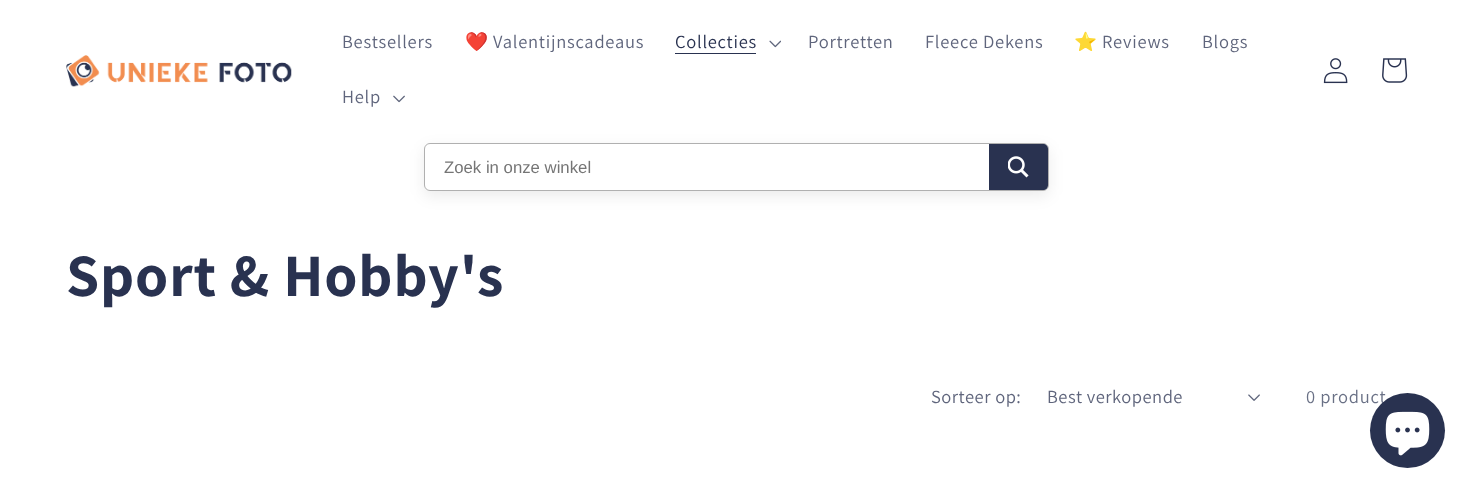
<svg xmlns="http://www.w3.org/2000/svg" width="1472" height="493" viewBox="0 0 1472 493">
  <rect width="100%" height="100%" fill="#fff"/>
  <image x="66" y="55" width="226" height="32" href="img/1.png"/>
  <path d="M675 53h81v1H675z" fill="#293250"/>
  <image x="769" y="40" width="12" height="8" href="img/2.png"/>
  <image x="393" y="95" width="12" height="8" href="img/3.png"/>
  <image x="1323" y="58" width="25" height="26" href="img/4.png"/>
  <image x="1382" y="58" width="26" height="25" href="img/5.png"/>
  <rect x="424" y="148" width="625" height="48" rx="6" fill="#00000014" filter="blur(7.5px)"/>
  <rect x="424.5" y="143.5" width="624" height="47" rx="5.5" fill="#fff" stroke="#b0b0b0"/>
  <path d="M989 144H1043C1046 144 1048 146 1048 149V185C1048 188 1046 190 1043 190H989Z" fill="#293250"/>
  <image x="1008" y="156" width="21" height="22" href="img/6.png"/>
  <image x="1248" y="394" width="12" height="7" href="img/7.png"/>
  <text x="342" y="48" font-family="Assistant" font-size="18.5" letter-spacing="0.75" fill="#5f657c">Bestsellers</text>
  <text x="465" y="48" font-family="Noto Color Emoji" font-size="18.5" letter-spacing="0.75" fill="#5f657c">❤️</text>
  <text x="493" y="48" font-family="Assistant" font-size="18.5" letter-spacing="0.75" fill="#5f657c">Valentijnscadeaus</text>
  <text x="675" y="48" font-family="Assistant" font-size="18.5" letter-spacing="0.75" fill="#293250">Collecties</text>
  <g font-family="Assistant" font-size="18.5" letter-spacing="0.75" fill="#5f657c">
    <text x="808" y="48">Portretten</text>
    <text x="925" y="48">Fleece Dekens</text>
  </g>
  <text x="1074" y="48" font-family="Noto Color Emoji" font-size="18.5" letter-spacing="0.75" fill="#5f657c">⭐️</text>
  <g font-family="Assistant" font-size="18.5" letter-spacing="0.75" fill="#5f657c">
    <text x="1102" y="48">Reviews</text>
    <text x="1202" y="48">Blogs</text>
    <text x="342" y="103">Help</text>
  </g>
  <text x="444" y="173" font-family="Liberation Sans" font-size="16.75" fill="#757575">Zoek in onze winkel</text>
  <text x="66" y="296" font-family="Assistant" font-size="60" font-weight="bold" letter-spacing="0.9" fill="#293250">Sport &amp; Hobby's</text>
  <g font-family="Assistant" font-size="18.5" letter-spacing="0.5" fill="#5f657c">
    <text x="931" y="403">Sorteer op:</text>
    <text x="1047" y="403">Best verkopende</text>
  </g>
  <text x="1306" y="403" font-family="Assistant" font-size="18.5" letter-spacing="0.75" fill="#697085">0 product</text>
  <circle cx="1407.5" cy="430.5" r="37.5" fill="#293250"/>
  <image x="1385" y="411" width="45" height="45" href="img/8.png"/>
</svg>
